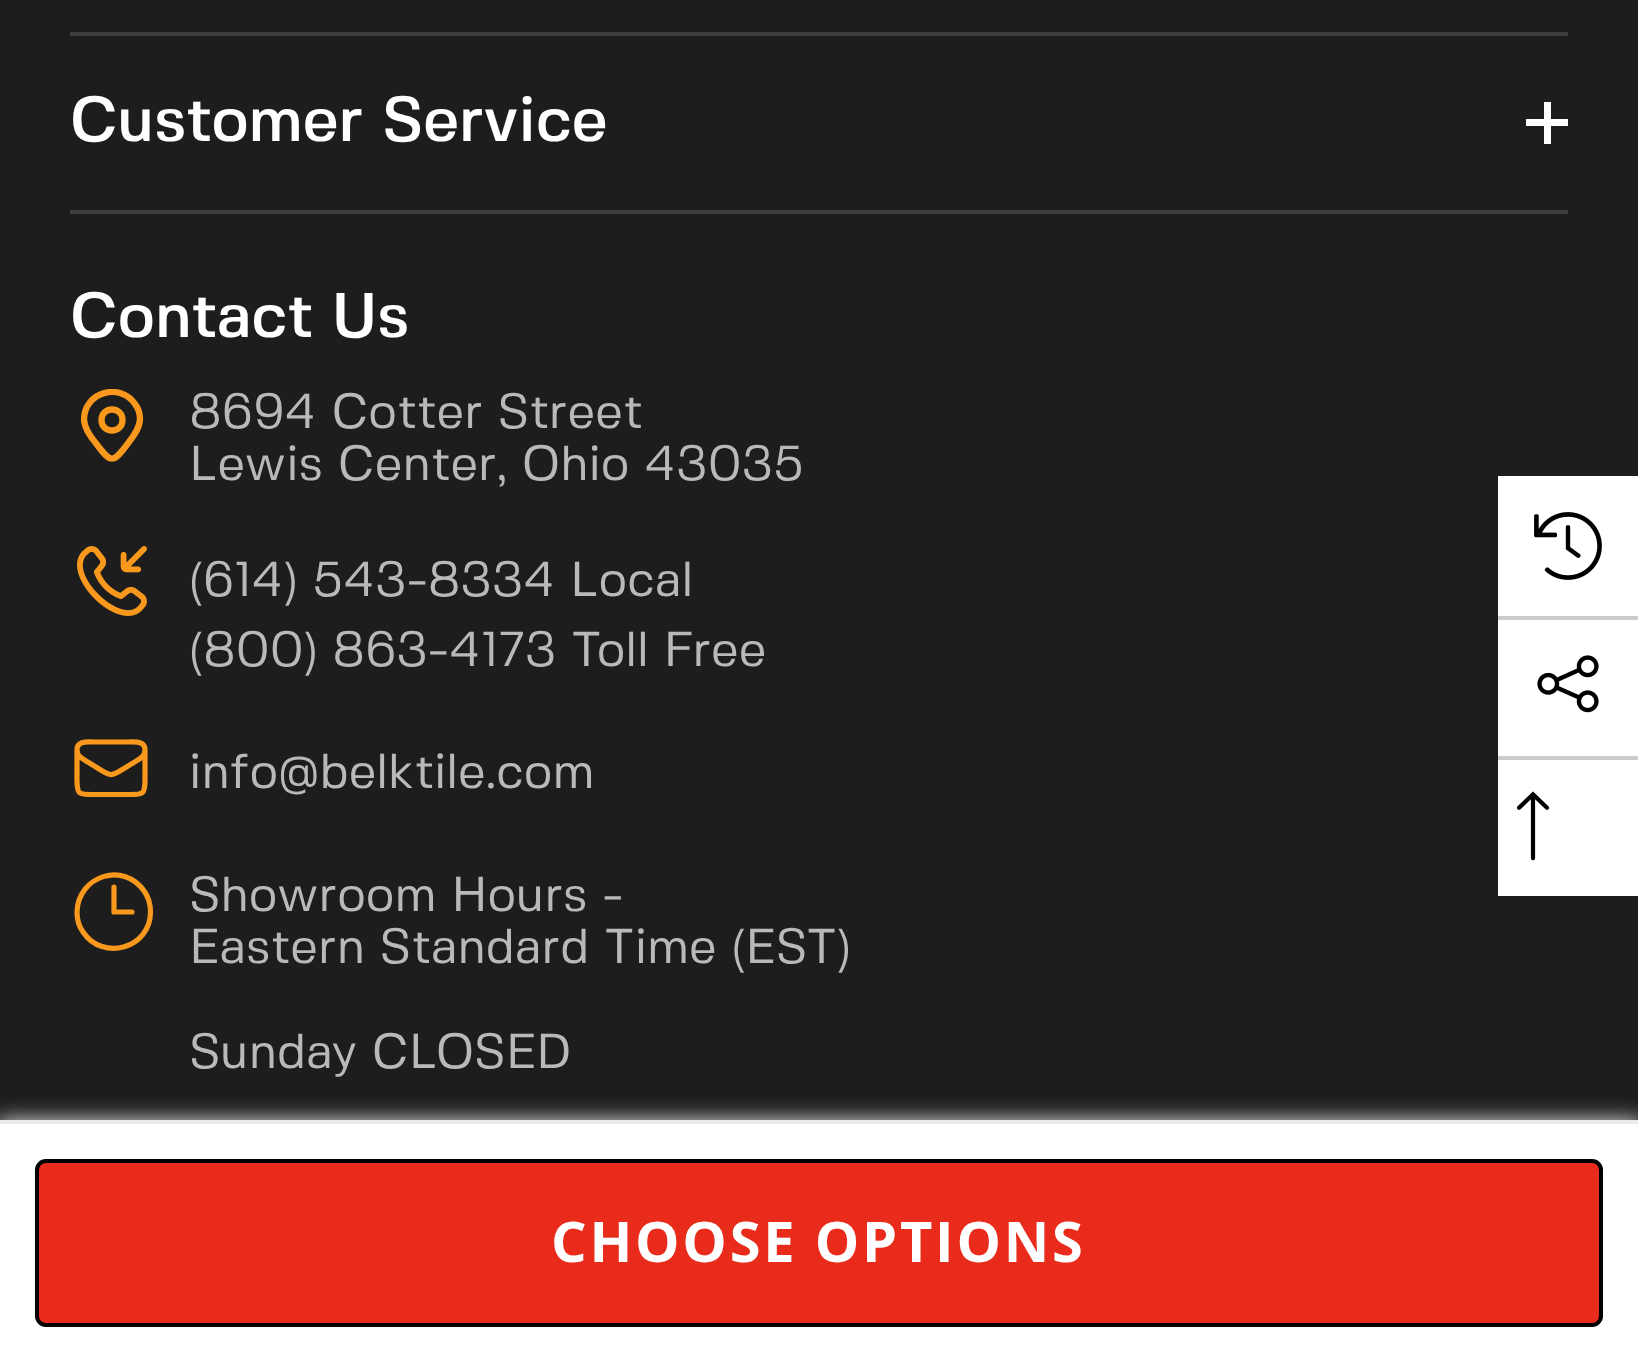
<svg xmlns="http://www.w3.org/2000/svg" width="1638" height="1366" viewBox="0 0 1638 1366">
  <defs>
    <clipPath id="clip1"><path d="M81 389h63v77H81z"/></clipPath>
  </defs>
  <rect width="100%" height="100%" fill="#1d1d1d"/>
  <path d="M70 32h1498v4H70z" fill="#3f3f3f"/>
  <path d="M70 210h1498v4H70z" fill="#3f3f3f"/>
  <path d="M1544 102h7v42H1544z" fill="#fff"/>
  <path d="M1526 119h42v7H1526z" fill="#fff"/>
  <g clip-path="url(#clip1)">
    <path d="M140 419C140 428 133 437 127.5 444C113 463.5 111 463.5 96.5 444C91 437.5 84 428 84 419C84.5 392 120 382 135 404C138.5 408.5 140 414 140 419Z" fill="none" stroke="#f8981d" stroke-width="6.3" stroke-linecap="round"/>
  </g>
  <path d="M122.5 420C122.5 434 101.5 434 101.5 420C101.5 406 122.5 406 122.5 420Z" fill="none" stroke="#f8981d" stroke-width="6.3" stroke-linecap="round"/>
  <image x="77" y="546" width="70" height="70" href="img/1.png"/>
  <path d="M145 750V780.5C145 795 142.5 794.5 128.5 794.5H93.5C79.5 794.5 77 795 77 780.5V750M145 750C145 740.5 134.5 742 128.5 742H93.5C87.5 742 77 740.5 77 750M145 750C145 757 138.5 759.5 133 763C107 778.5 115 778.5 89.5 763C84 759.5 77 757 77 750" fill="none" stroke="#f8981d" stroke-width="5.2" stroke-linecap="round" stroke-linejoin="round"/>
  <path d="M114 887V912H132M150.5 912C150.5 948 103 962 83 932C79 926.5 77 919 77 912C78 875.5 124 861 144.5 891.5C148.5 897.5 150.5 904.5 150.5 912Z" fill="none" stroke="#f8981d" stroke-width="5.2" stroke-linecap="round" stroke-linejoin="round"/>
  <path d="M1498 476h140v420H1498z" fill="#fff"/>
  <image x="1534" y="512" width="68" height="68" href="img/2.png"/>
  <path d="M1498 616h140v4H1498z" fill="#cbcbcb"/>
  <image x="1537" y="655" width="62" height="58" href="img/3.png"/>
  <path d="M1498 756h140v4H1498z" fill="#cbcbcb"/>
  <image x="1516" y="791" width="34" height="70" href="img/4.png"/>
  <path d="M-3 1120h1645v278H-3z" fill="#e5e5e5" filter="blur(10.5px)"/>
  <path d="M0 1124h1638v242H0z" fill="#fff"/>
  <path d="M0 1120h1638v4H0z" fill="#ebebeb"/>
  <rect x="37" y="1161" width="1564" height="164" rx="9" fill="none" stroke="#e5e5e5" stroke-width="4"/>
  <rect x="37" y="1161" width="1564" height="164" rx="9" fill="#e82b1a" stroke="#000" stroke-width="4"/>
  <g font-family="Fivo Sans" font-size="63" font-weight="500" fill="#fff">
    <text x="70" y="141">Customer Service</text>
    <text x="70" y="337">Contact Us</text>
  </g>
  <g font-family="Fivo Sans" font-size="49" fill="#b9b9b9">
    <text x="189" y="428">8694 Cotter Street</text>
    <text x="189" y="480">Lewis Center, Ohio 43035</text>
    <text x="189" y="596">(614) 543-8334 Local</text>
    <text x="189" y="666">(800) 863-4173 Toll Free</text>
    <text x="189" y="788">info@belktile.com</text>
    <text x="189" y="911">Showroom Hours -</text>
    <text x="189" y="963">Eastern Standard Time (EST)</text>
    <text x="189" y="1068">Sunday CLOSED</text>
  </g>
  <text x="551" y="1262" font-family="Open Sans" font-size="56" font-weight="bold" letter-spacing="2.75" fill="#fff">CHOOSE OPTIONS</text>
</svg>
